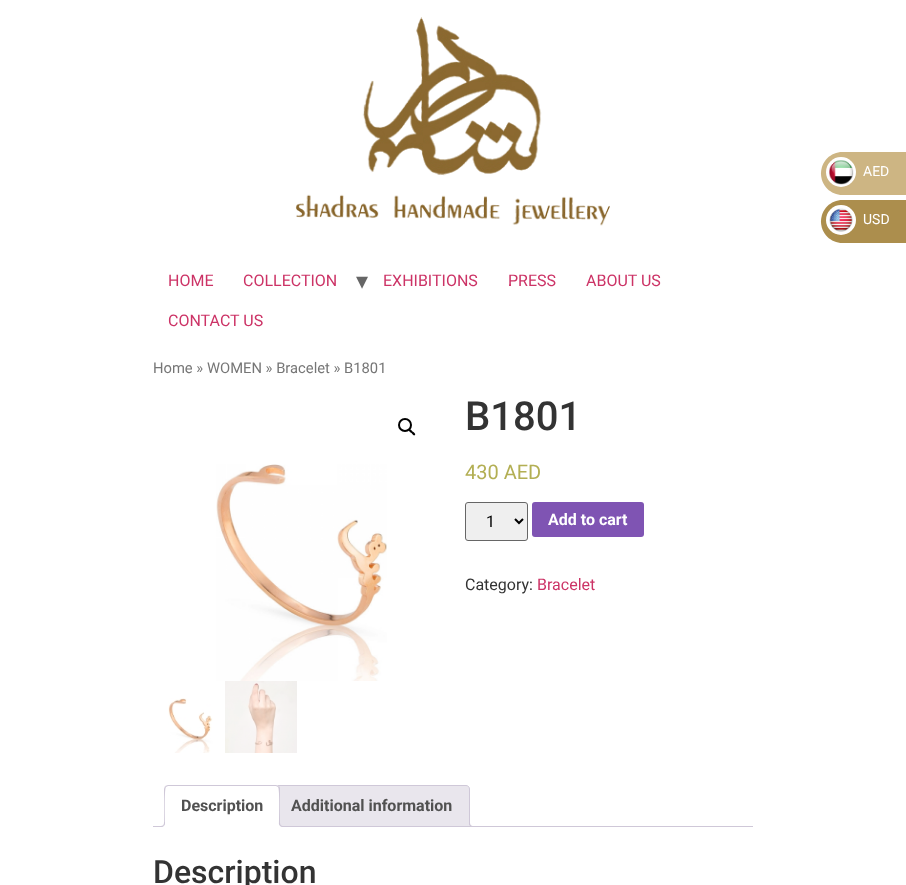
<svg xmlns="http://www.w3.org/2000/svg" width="906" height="885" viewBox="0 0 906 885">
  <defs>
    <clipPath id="clip1"><path d="M153 785h600v42H153z"/></clipPath>
  </defs>
  <rect width="100%" height="100%" fill="#fff"/>
  <path d="M842.5 152H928V195H842.5C830.5 195 821 185.5 821 173.5C821 161.5 830.5 152 842.5 152Z" fill="#cdb583"/>
  <circle cx="841" cy="172" r="15" fill="#fff"/>
  <image x="829" y="160" width="25" height="25" href="img/1.png"/>
  <path d="M842.5 200H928V243H842.5C830.5 243 821 233.5 821 221.5C821 209.5 830.5 200 842.5 200Z" fill="#ac8e4d"/>
  <circle cx="841" cy="220" r="15" fill="#fff"/>
  <image x="829" y="208" width="24" height="24" href="img/2.png"/>
  <image x="295" y="17" width="315" height="209" href="img/3.png"/>
  <circle cx="405" cy="425" r="6" fill="none" stroke="#000" stroke-width="2"/>
  <path d="M409 429.5C410.5 428.5 412 431 412.5 431.5C413.5 432 416 434 415 435C413.5 436.5 412 433.5 411.5 433C410.5 432.5 408 430.5 409 429.5Z" fill="#000"/>
  <image x="216" y="464" width="171" height="217" href="img/4.png"/>
  <image x="168" y="698" width="45" height="55" href="img/5.png"/>
  <image x="225" y="681" width="72" height="72" href="img/6.png"/>
  <rect x="465.5" y="502.5" width="62" height="38" rx="2.5" fill="#efefef" stroke="#666"/>
  <path d="M515 519L519 523L523 519" fill="none" stroke="#000" stroke-width="2"/>
  <rect x="532" y="502" width="112" height="35" rx="3" fill="#7f54b3"/>
  <path d="M278 785.5H466C468 785.5 469.5 787 469.5 789V826.5H274.5V789C274.5 787 276 785.5 278 785.5Z" fill="#e9e6ed" stroke="#cfc8d8"/>
  <g clip-path="url(#clip1)">
    <path d="M467 824C467 827.5 468.5 829 472 829V827C470.5 826.5 469.5 825.5 469 824Z" fill="#e9e6ed"/>
  </g>
  <path d="M469 822H474V827C471.5 827 469 826 469 823ZM470 822H474V826C472 826 470 825.5 470 823Z" fill="#cfc8d8" fill-rule="evenodd"/>
  <path d="M153 826h600v1H153z" fill="#cfc8d8"/>
  <path d="M168 785H276C278 785 280 787 280 789V827H164V789C164 787 166 785 168 785Z" fill="#fff"/>
  <path d="M168 785L165 786L166 787L168 786H276L278 787L279 786L276 785Z" fill="#cfc8d8"/>
  <path d="M280 827V789C280 788 280 787 279 786L278 787C280 789 279 821 279 826Z" fill="#cfc8d8"/>
  <path d="M280 827L279 826H165L164 827Z" fill="#fff"/>
  <path d="M164 827L165 826C165 821 164 789 166 787L165 786L164 789Z" fill="#cfc8d8"/>
  <g clip-path="url(#clip1)">
    <path d="M162 827V829C165.5 829 167 827.5 167 824H165C164.5 825.5 163.5 826.5 162 827Z" fill="#fff"/>
  </g>
  <path d="M160 822H165C165 825.5 163.5 827 160 827ZM160 822H164C164 825 163 826 160 826Z" fill="#cfc8d8" fill-rule="evenodd"/>
  <g clip-path="url(#clip1)">
    <path d="M277 824C277 827.5 278.5 829 282 829V827C280.5 826.5 279.5 825.5 279 824Z" fill="#fff"/>
  </g>
  <path d="M279 822H284V827C281.5 827 279 826 279 823ZM280 822H284V826C282 826 280 825.5 280 823Z" fill="#cfc8d8" fill-rule="evenodd"/>
  <g font-family="Roboto" font-size="14" fill="#fff">
    <text x="863" y="176">AED</text>
    <text x="863" y="224">USD</text>
  </g>
  <g font-family="Roboto" font-size="16" fill="#c36">
    <text x="168" y="286">HOME</text>
    <text x="243" y="286">COLLECTION</text>
  </g>
  <text x="356" y="289" font-family="DejaVu Sans" font-size="24" fill="#666">▾</text>
  <g font-family="Roboto" font-size="16" fill="#c36">
    <text x="383" y="286">EXHIBITIONS</text>
    <text x="586" y="286">ABOUT US</text>
    <text x="508" y="286">.</text>
    <text x="508" y="286">PRESS</text>
    <text x="168" y="326">CONTACT US</text>
  </g>
  <text x="153" y="373" font-family="Roboto" font-size="14.75" fill="#767676">Home » WOMEN » Bracelet » B1801</text>
  <text x="465" y="430" font-family="Roboto" font-size="40" font-weight="500" fill="#333">B1801</text>
  <text x="465" y="479" font-family="Roboto" font-size="20" fill="#b3af54">430 AED</text>
  <text x="486" y="527" font-family="Roboto" font-size="16" fill="#000">1</text>
  <text x="548" y="525" font-family="Roboto" font-size="16" font-weight="bold" fill="#fff">Add to cart</text>
  <text x="465" y="590" font-family="Roboto" font-size="16" fill="#333">Category:</text>
  <text x="537" y="590" font-family="Roboto" font-size="16" fill="#c36">Bracelet</text>
  <g font-family="Roboto" font-size="16" font-weight="bold" fill="#515151">
    <text x="181" y="811">Description</text>
    <text x="291" y="811">Additional information</text>
  </g>
  <text x="153" y="883" font-family="Roboto" font-size="32" font-weight="500" fill="#333">Description</text>
</svg>
